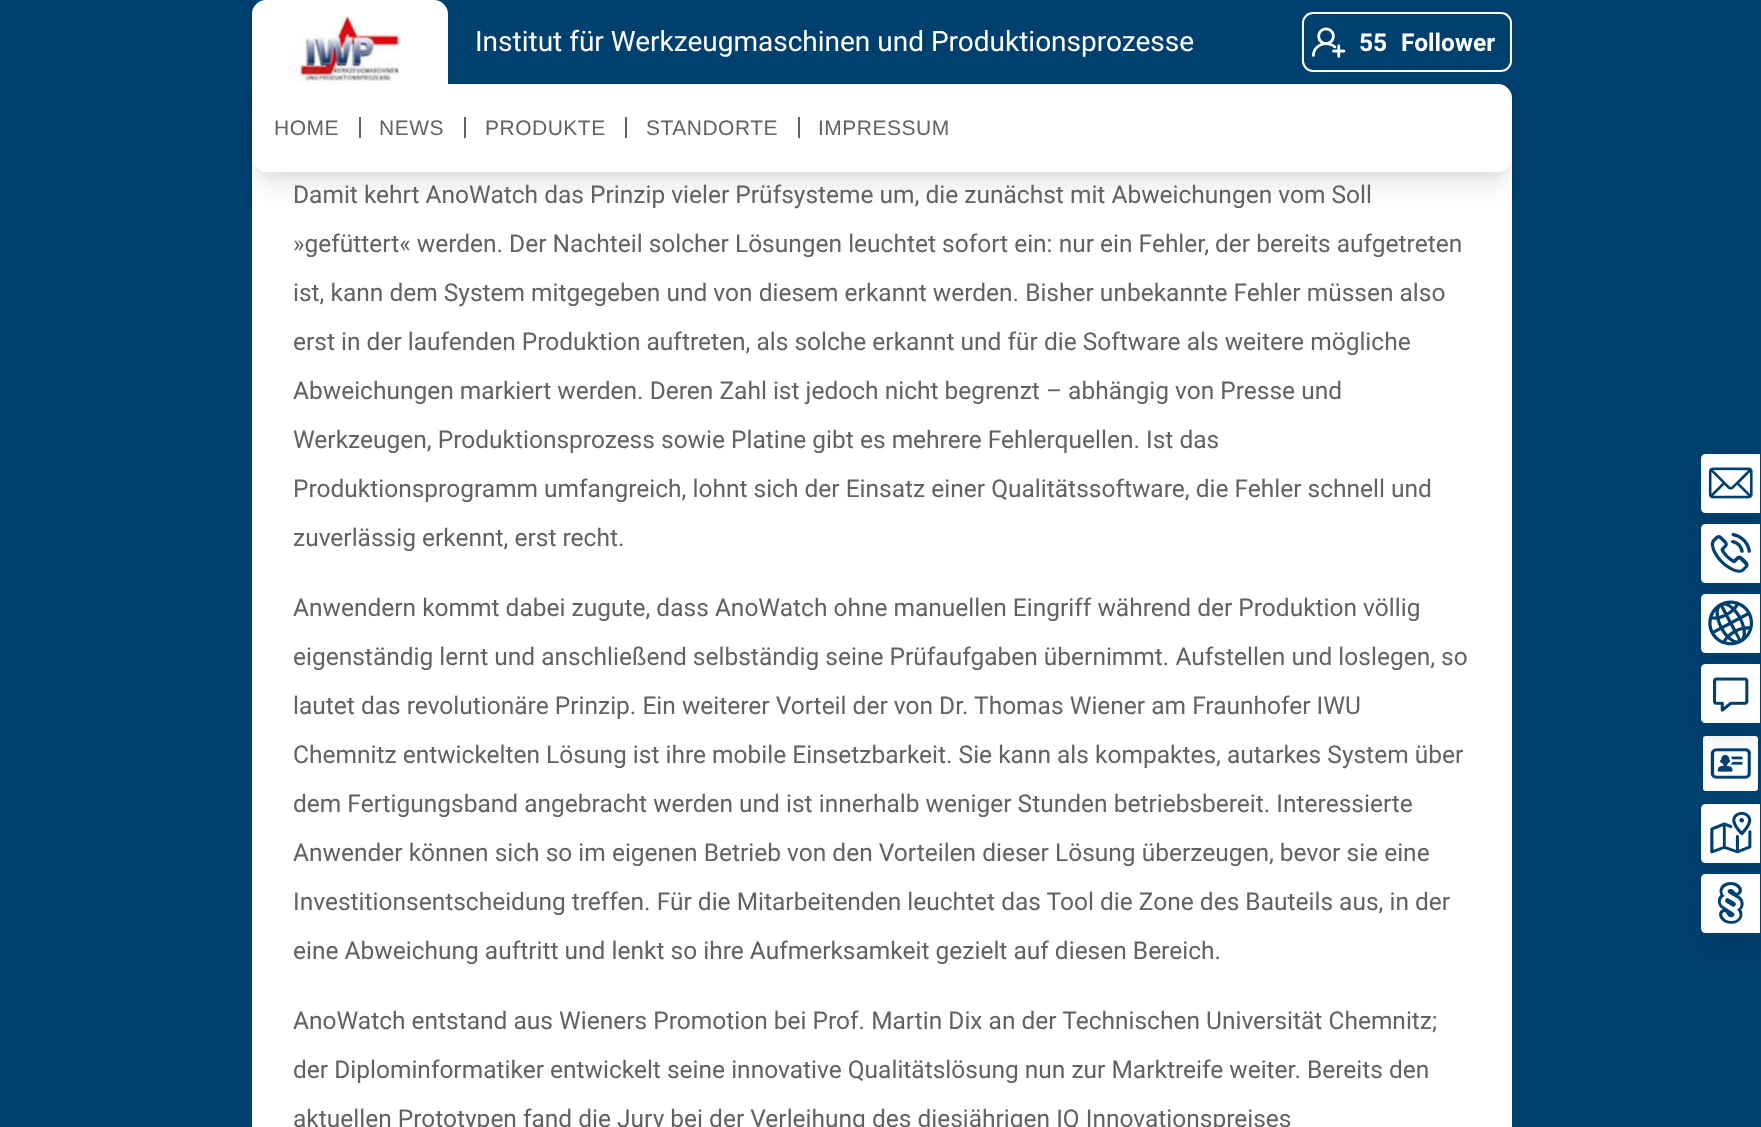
<svg xmlns="http://www.w3.org/2000/svg" width="1761" height="1127" viewBox="0 0 1761 1127">
  <rect width="100%" height="100%" fill="#00406f"/>
  <rect x="252" y="-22" width="1260" height="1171" rx="14" fill="#0000001a" filter="blur(2.5px)"/>
  <path d="M252 0h1260v98H252z" fill="#00406f"/>
  <rect x="252" y="2" width="196" height="84" rx="14" fill="#0000001a" filter="blur(2.5px)"/>
  <path d="M266 1H434C441 1 447 7 447 14V83H253V14C253 7 259 1 266 1Z" fill="#fff" stroke="#fff" stroke-width="2"/>
  <image x="286" y="15" width="122" height="68" href="img/1.png"/>
  <path d="M448 10h2v68H448z" fill="#00406f"/>
  <rect x="1303" y="13" width="208" height="58" rx="10" fill="none" stroke="#fff" stroke-width="2"/>
  <image x="1312" y="27" width="34" height="31" href="img/2.png"/>
  <path d="M252 158h1260v969H252z" fill="#fff"/>
  <rect x="256" y="95" width="1253" height="80" rx="11" fill="#0000000d" filter="blur(5px)"/>
  <rect x="257" y="107" width="1250" height="77" rx="9" fill="#0000001a" filter="blur(13px)"/>
  <path d="M253 85H1498C1505 85 1511 91 1511 98V158C1511 165 1505 171 1498 171H266C259 171 253 165 253 158Z" fill="#fff" stroke="#fff" stroke-width="2"/>
  <path d="M359 117h2v21H359z" fill="#626262"/>
  <path d="M464 117h2v21H464z" fill="#626262"/>
  <path d="M625 117h2v21H625z" fill="#626262"/>
  <path d="M798 117h2v21H798z" fill="#626262"/>
  <path d="M1705 474h52v53H1705z" fill="#0000001a" filter="blur(13px)"/>
  <path d="M1706 453H1761V514H1706C1702.5 514 1700 511.5 1700 508V459C1700 455.5 1702.5 453 1706 453Z" fill="#fff" stroke="#00406f" stroke-width="2"/>
  <image x="1708" y="467" width="45" height="32" href="img/3.png"/>
  <path d="M1705 544h52v53H1705z" fill="#0000001a" filter="blur(13px)"/>
  <path d="M1706 523H1761V584H1706C1702.5 584 1700 581.5 1700 578V529C1700 525.5 1702.5 523 1706 523Z" fill="#fff" stroke="#00406f" stroke-width="2"/>
  <image x="1710" y="532" width="41" height="41" href="img/4.png"/>
  <path d="M1705 614h52v53H1705z" fill="#0000001a" filter="blur(13px)"/>
  <path d="M1706 593H1761V654H1706C1702.5 654 1700 651.5 1700 648V599C1700 595.5 1702.5 593 1706 593Z" fill="#fff" stroke="#00406f" stroke-width="2"/>
  <image x="1708" y="600" width="46" height="46" href="img/5.png"/>
  <rect x="1701" y="734" width="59" height="59" rx="5" fill="#fff" stroke="#00406f" stroke-width="4"/>
  <image x="1710" y="748" width="41" height="31" href="img/7.png"/>
  <path d="M1705 684h52v53H1705z" fill="#0000001a" filter="blur(13px)"/>
  <path d="M1706 663H1761V724H1706C1702.5 724 1700 721.5 1700 718V669C1700 665.5 1702.5 663 1706 663Z" fill="#fff" stroke="#00406f" stroke-width="2"/>
  <image x="1713" y="677" width="36" height="35" href="img/6.png"/>
  <path d="M1705 824h52v53H1705z" fill="#0000001a" filter="blur(13px)"/>
  <path d="M1706 803H1761V864H1706C1702.5 864 1700 861.5 1700 858V809C1700 805.5 1702.5 803 1706 803Z" fill="#fff" stroke="#00406f" stroke-width="2"/>
  <image x="1710" y="811" width="42" height="43" href="img/8.png"/>
  <path d="M1705 894h52v53H1705z" fill="#0000001a" filter="blur(13px)"/>
  <path d="M1706 873H1761V934H1706C1702.5 934 1700 931.5 1700 928V879C1700 875.5 1702.5 873 1706 873Z" fill="#fff" stroke="#00406f" stroke-width="2"/>
  <image x="1717" y="882" width="27" height="42" href="img/9.png"/>
  <text x="475" y="51" font-family="Roboto" font-size="28" fill="#fff">Institut für Werkzeugmaschinen und Produktionsprozesse</text>
  <g font-family="Roboto" font-size="24.5" font-weight="bold" fill="#fff">
    <text x="1359" y="51">55</text>
    <text x="1401" y="51">Follower</text>
  </g>
  <g font-family="Liberation Sans" font-size="21" letter-spacing="0.5" fill="#626262">
    <text x="274" y="135">HOME</text>
    <text x="379" y="135">NEWS</text>
    <text x="485" y="135">PRODUKTE</text>
    <text x="646" y="135">STANDORTE</text>
    <text x="818" y="135">IMPRESSUM</text>
  </g>
  <g font-family="Roboto" font-size="24.5" fill="#626262">
    <text x="293" y="203">Damit kehrt AnoWatch das Prinzip vieler Prüfsysteme um, die zunächst mit Abweichungen vom Soll</text>
    <text x="293" y="252">»gefüttert« werden. Der Nachteil solcher Lösungen leuchtet sofort ein: nur ein Fehler, der bereits aufgetreten</text>
    <text x="293" y="301">ist, kann dem System mitgegeben und von diesem erkannt werden. Bisher unbekannte Fehler müssen also</text>
    <text x="293" y="350">erst in der laufenden Produktion auftreten, als solche erkannt und für die Software als weitere mögliche</text>
    <text x="293" y="399">Abweichungen markiert werden. Deren Zahl ist jedoch nicht begrenzt – abhängig von Presse und</text>
    <text x="293" y="448">Werkzeugen, Produktionsprozess sowie Platine gibt es mehrere Fehlerquellen. Ist das</text>
    <text x="293" y="497">Produktionsprogramm umfangreich, lohnt sich der Einsatz einer Qualitätssoftware, die Fehler schnell und</text>
    <text x="293" y="546">zuverlässig erkennt, erst recht.</text>
    <text x="293" y="616">Anwendern kommt dabei zugute, dass AnoWatch ohne manuellen Eingriff während der Produktion völlig</text>
    <text x="293" y="665">eigenständig lernt und anschließend selbständig seine Prüfaufgaben übernimmt. Aufstellen und loslegen, so</text>
    <text x="293" y="714">lautet das revolutionäre Prinzip. Ein weiterer Vorteil der von Dr. Thomas Wiener am Fraunhofer IWU</text>
    <text x="293" y="763">Chemnitz entwickelten Lösung ist ihre mobile Einsetzbarkeit. Sie kann als kompaktes, autarkes System über</text>
    <text x="293" y="812">dem Fertigungsband angebracht werden und ist innerhalb weniger Stunden betriebsbereit. Interessierte</text>
    <text x="293" y="861">Anwender können sich so im eigenen Betrieb von den Vorteilen dieser Lösung überzeugen, bevor sie eine</text>
    <text x="293" y="910">Investitionsentscheidung treffen. Für die Mitarbeitenden leuchtet das Tool die Zone des Bauteils aus, in der</text>
    <text x="293" y="959">eine Abweichung auftritt und lenkt so ihre Aufmerksamkeit gezielt auf diesen Bereich.</text>
    <text x="293" y="1029">AnoWatch entstand aus Wieners Promotion bei Prof. Martin Dix an der Technischen Universität Chemnitz;</text>
    <text x="293" y="1078">der Diplominformatiker entwickelt seine innovative Qualitätslösung nun zur Marktreife weiter. Bereits den</text>
    <text x="293" y="1127">aktuellen Prototypen fand die Jury bei der Verleihung des diesjährigen IQ Innovationspreises</text>
  </g>
</svg>
